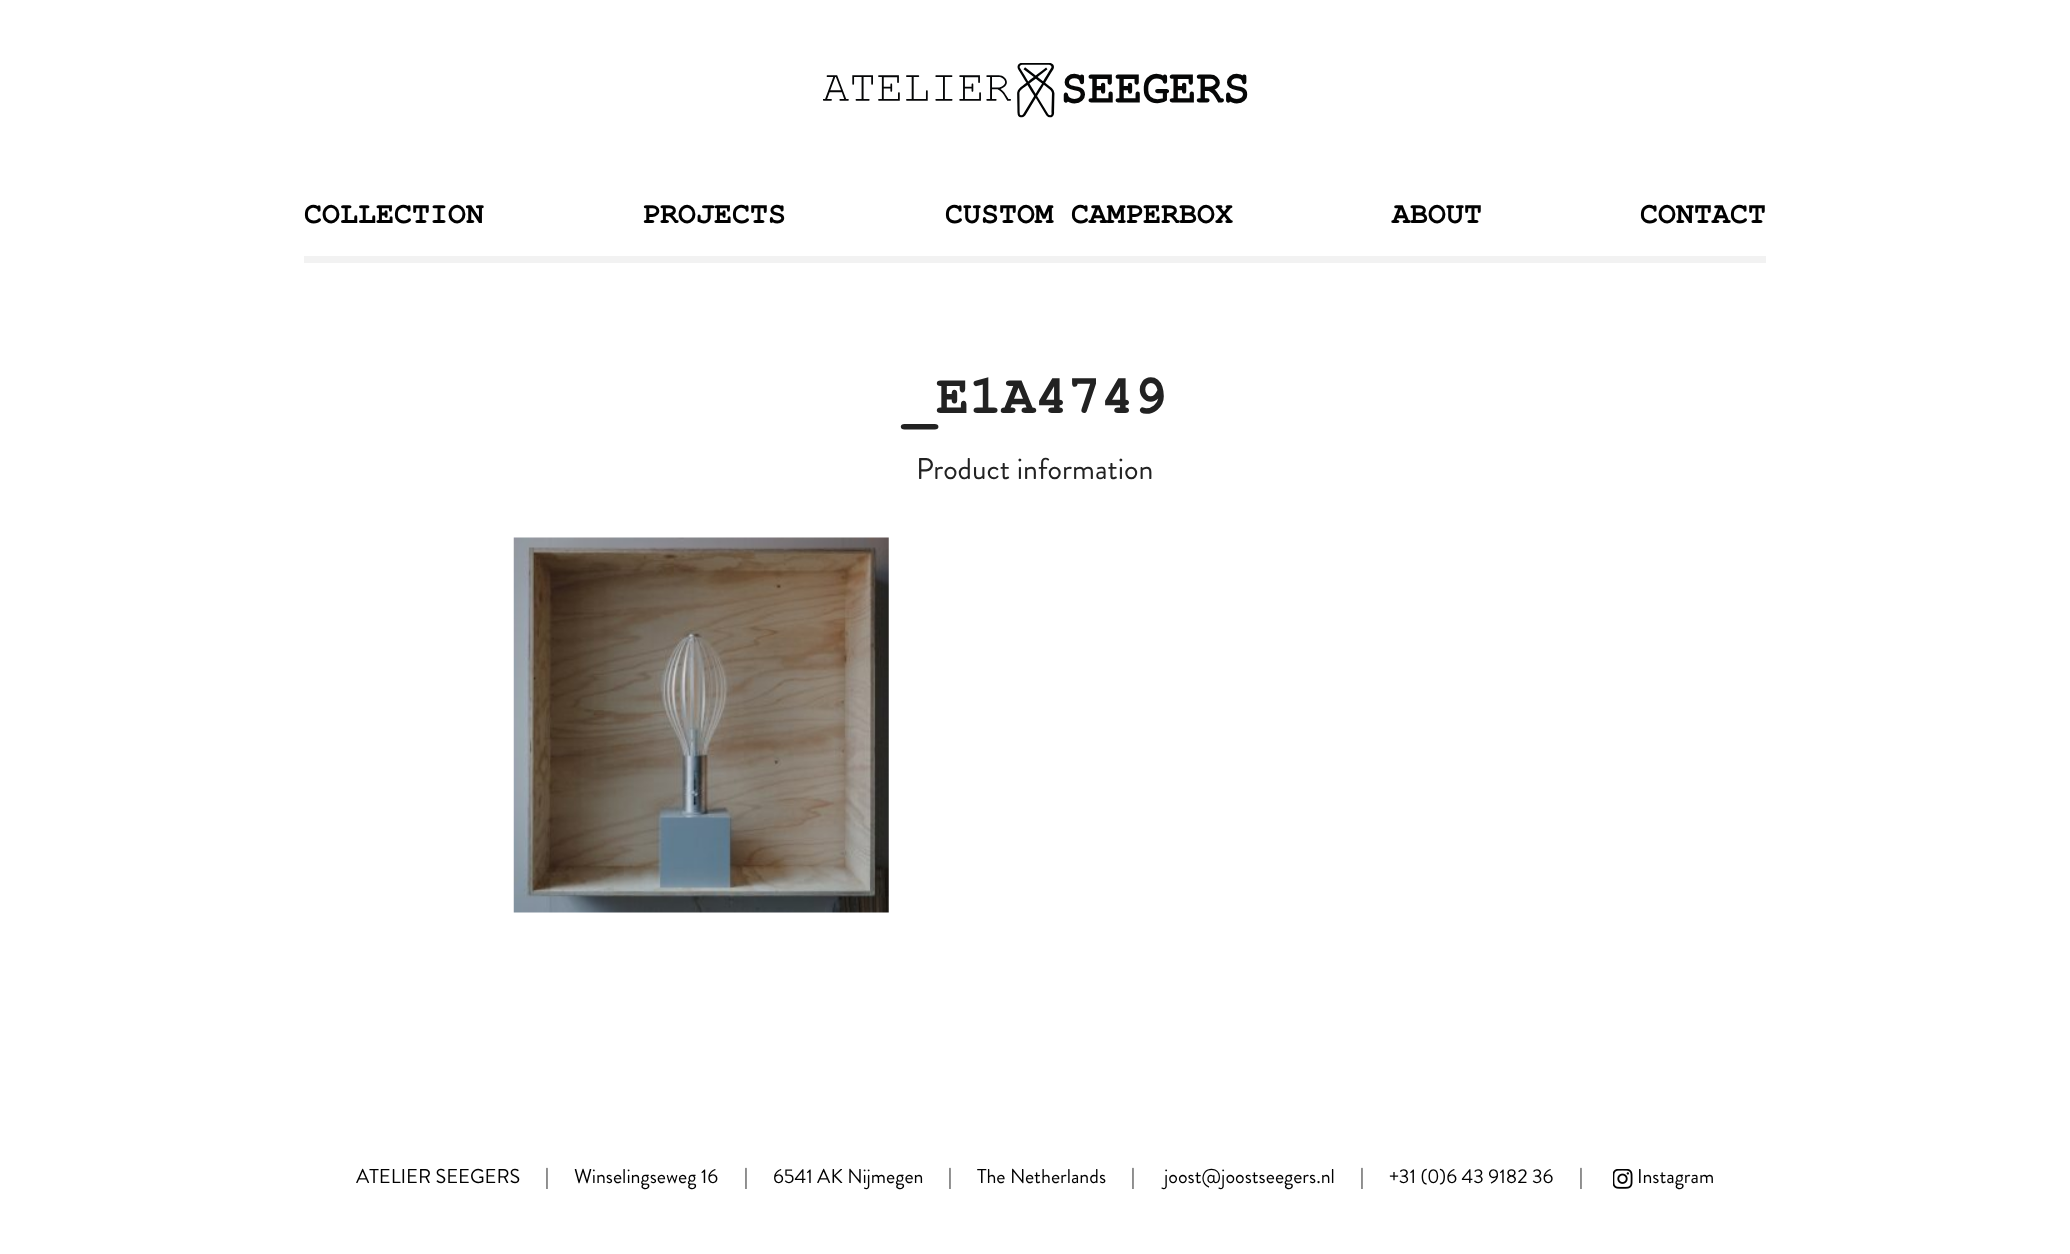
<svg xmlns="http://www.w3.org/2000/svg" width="2070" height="1254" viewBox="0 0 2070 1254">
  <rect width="100%" height="100%" fill="#fff"/>
  <image x="823" y="63" width="425" height="55" href="img/1.png"/>
  <path d="M304 256h1462v7H304z" fill="#f2f2f2"/>
  <image x="513" y="537" width="376" height="376" href="img/2.png"/>
  <image x="1613" y="1169" width="20" height="20" href="img/3.png"/>
  <g font-family="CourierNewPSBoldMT" font-size="30" font-weight="bold" fill="#010101">
    <text x="304" y="223">COLLECTION</text>
    <text x="642" y="223">PROJECTS</text>
    <text x="945" y="223">CUSTOM CAMPERBOX</text>
    <text x="1392" y="223">ABOUT</text>
    <text x="1640" y="223">CONTACT</text>
  </g>
  <text x="903" y="413" font-family="CourierNewPSBoldMT" font-size="55" font-weight="bold" fill="#222">_E1A4749</text>
  <text x="916" y="479" font-family="Brandon Grotesque" font-size="30" fill="#222">Product information</text>
  <g font-family="Brandon Grotesque" font-size="20" fill="#010101">
    <text x="356" y="1183">ATELIER SEEGERS</text>
    <text x="545" y="1183">|</text>
    <text x="574" y="1183">Winselingseweg 16</text>
    <text x="744" y="1183">|</text>
    <text x="773" y="1183">6541 AK Nijmegen</text>
    <text x="948" y="1183">|</text>
    <text x="977" y="1183">The Netherlands</text>
    <text x="1131" y="1183">|</text>
    <text x="1164" y="1183">joost@joostseegers.nl</text>
    <text x="1360" y="1183">|</text>
    <text x="1389" y="1183">+31 (0)6 43 9182 36</text>
    <text x="1579" y="1183">|</text>
    <text x="1637" y="1183">Instagram</text>
  </g>
</svg>
